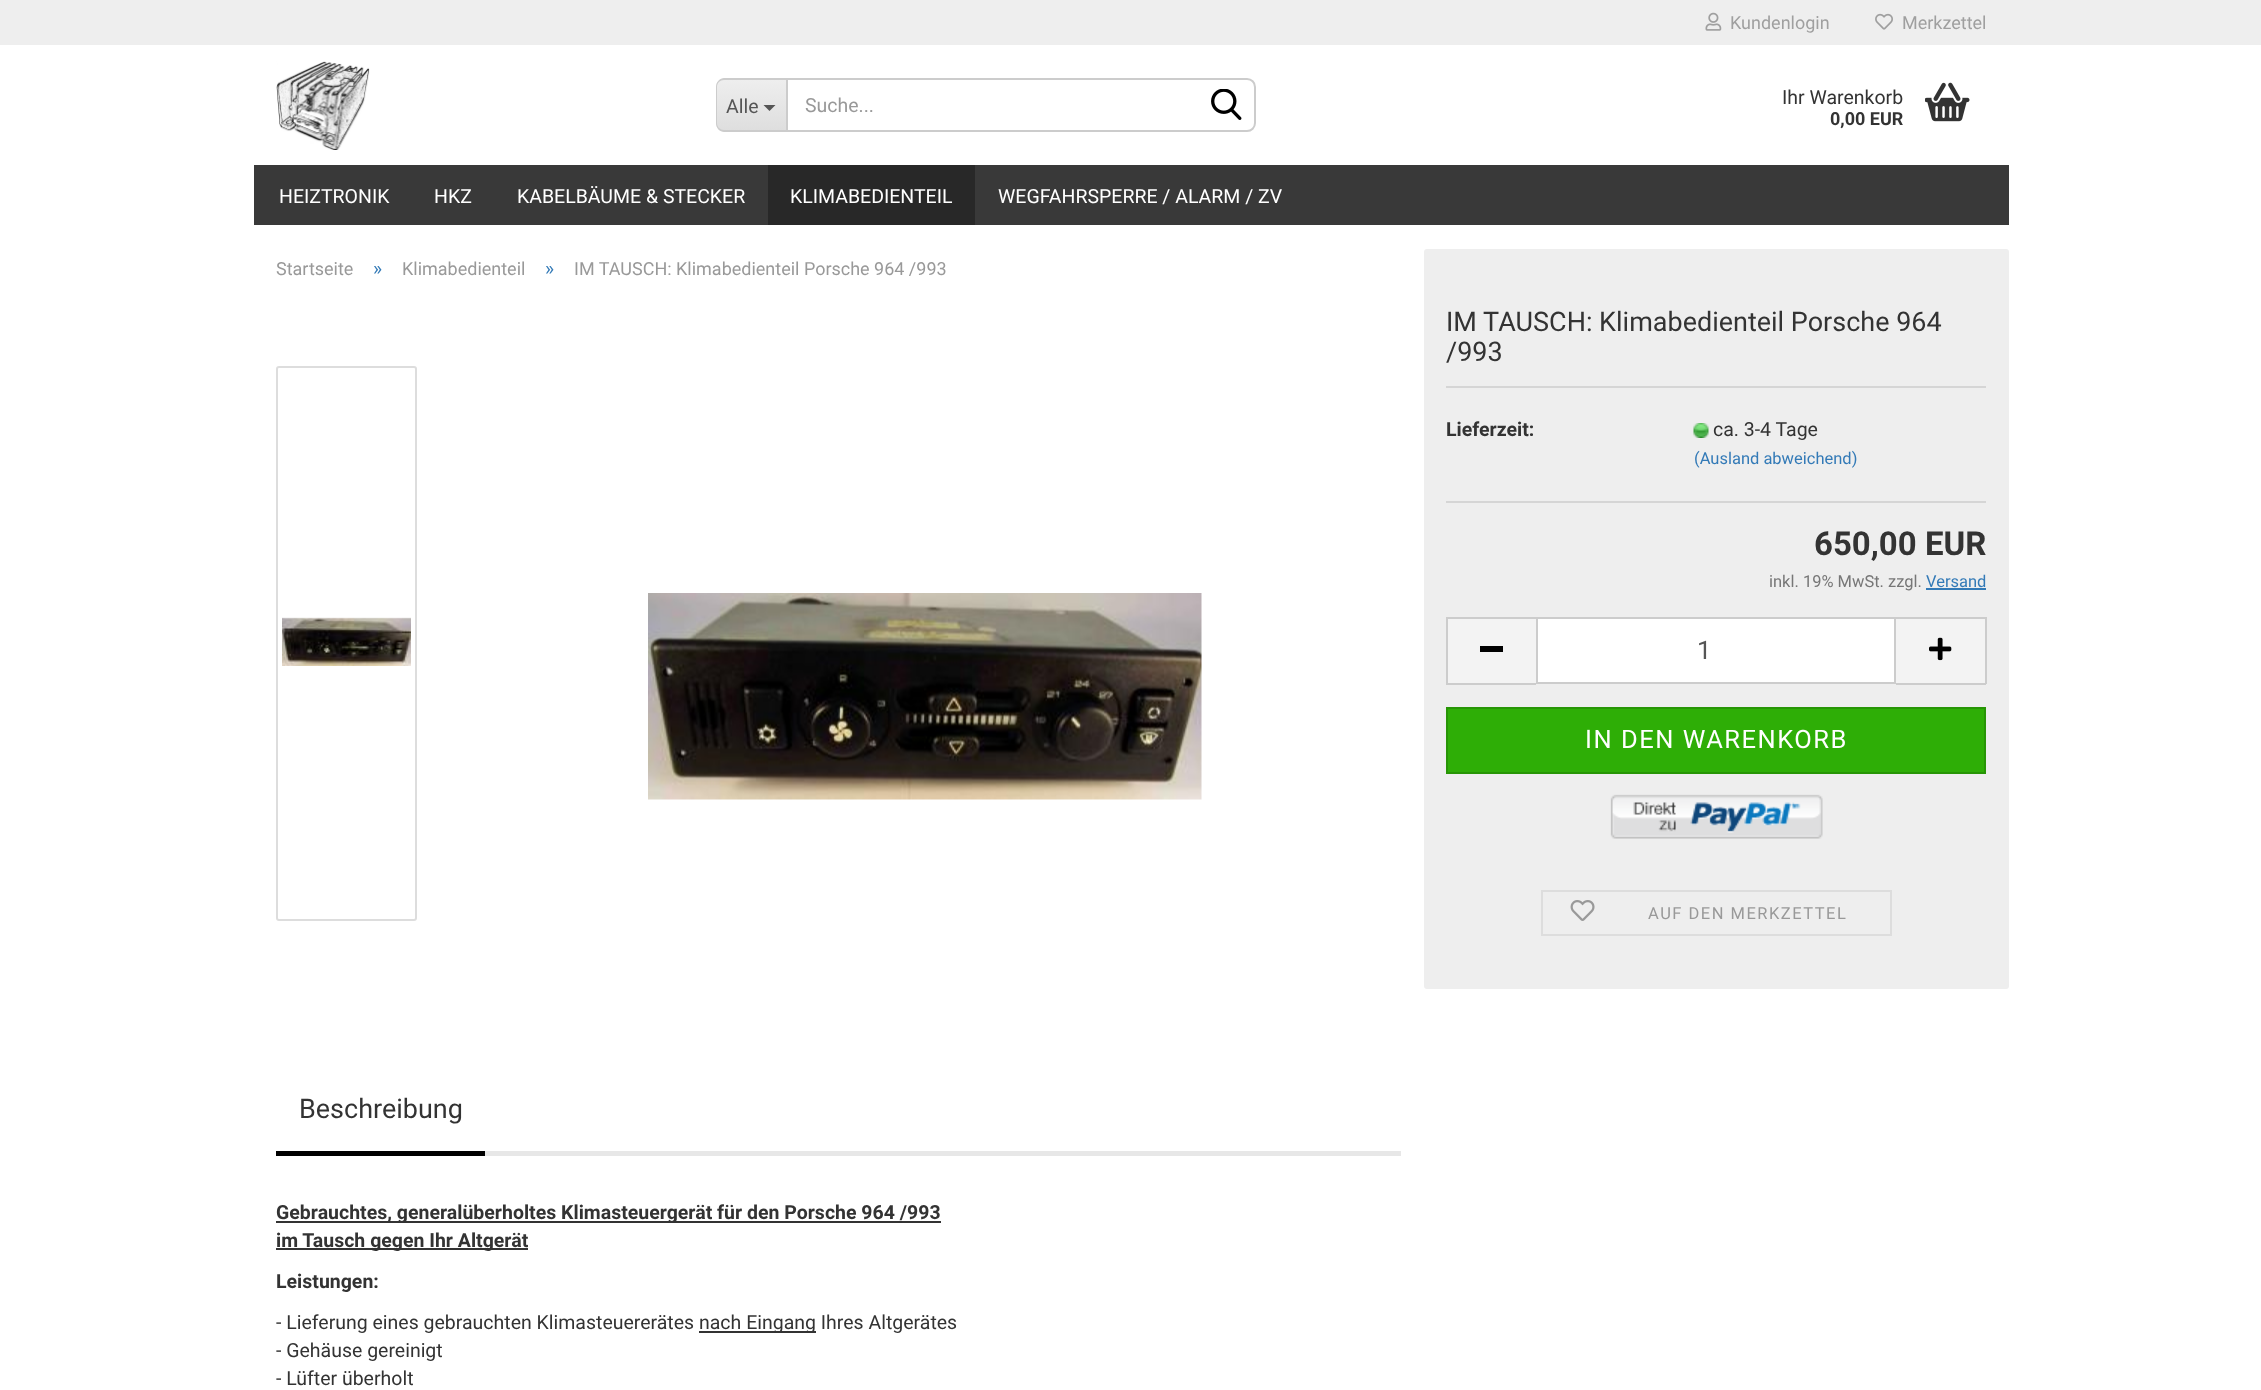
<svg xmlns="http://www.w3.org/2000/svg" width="2261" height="1390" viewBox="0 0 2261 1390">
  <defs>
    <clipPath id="clip1"><path d="M725 78H786V132H725C720 132 716 128 716 123V87C716 82 720 78 725 78Z"/></clipPath>
    <linearGradient id="g1" gradientUnits="userSpaceOnUse" x1="752" y1="80" x2="752" y2="131"><stop offset="0" stop-color="#eee"/><stop offset="1" stop-color="#dedede"/></linearGradient>
  </defs>
  <rect width="100%" height="100%" fill="#fff"/>
  <path d="M0 0h2261v45H0z" fill="#eee"/>
  <image x="1705" y="12" width="17" height="19" href="img/1.png"/>
  <image x="1875" y="13" width="18" height="17" href="img/2.png"/>
  <image x="276" y="61" width="94" height="89" href="img/3.png"/>
  <g clip-path="url(#clip1)">
    <path d="M716 80h70v51H716z" fill="url(#g1)"/>
  </g>
  <path d="M724 78H786V132H724C720 132 716 128 716 123V87C716 82 720 78 724 78ZM724 80H786V130H724C720 130 717 127 717 123V87C717 83 720 80 724 80Z" fill="#ccc" fill-rule="evenodd"/>
  <path d="M763.5 105H775.5L769.5 111Z" fill="#555"/>
  <path d="M787 79H1247C1251.5 79 1255 82.5 1255 87V123C1255 127.5 1251.5 131 1247 131H787Z" fill="none" stroke="#ccc" stroke-width="2"/>
  <image x="1211" y="89" width="31" height="31" href="img/4.png"/>
  <image x="1925" y="82" width="45" height="40" href="img/5.png"/>
  <path d="M254 165h1755v60H254z" fill="#393939"/>
  <path d="M768 165h207v60H768z" fill="#282828"/>
  <rect x="277" y="367" width="139" height="553" rx="2" fill="none" stroke="#ddd" stroke-width="2"/>
  <image x="282" y="617" width="129" height="49" href="img/6.png"/>
  <image x="648" y="593" width="554" height="207" href="img/7.png"/>
  <rect x="1424" y="249" width="585" height="740" rx="3" fill="#eee"/>
  <path d="M1446 386h540v2H1446z" fill="#d5d5d5"/>
  <path d="M1446 501h540v2H1446z" fill="#d5d5d5"/>
  <image x="1693" y="423" width="16" height="15" href="img/8.png"/>
  <path d="M1926 588h60v2H1926z" fill="#337ab7"/>
  <path d="M1448 619h88v64H1448z" fill="#f3f3f3"/>
  <path d="M1446 617h90v2H1446z" fill="#ccc"/>
  <path d="M1446 683h90v2H1446z" fill="#ccc"/>
  <path d="M1446 617h2v67H1446z" fill="#ccc"/>
  <path d="M1480 646h23v6H1480z" fill="#000"/>
  <path d="M1537 618h358v65H1537z" fill="#fff" stroke="#ccc" stroke-width="2"/>
  <path d="M1896 619h89v64H1896z" fill="#f3f3f3"/>
  <path d="M1896 617h90v2H1896z" fill="#ccc"/>
  <path d="M1985 617h2v67H1985z" fill="#ccc"/>
  <path d="M1896 683h90v2H1896z" fill="#ccc"/>
  <image x="1929" y="637" width="23" height="24" href="img/9.png"/>
  <path d="M1447 708h538v65H1447z" fill="#2eae06" stroke="#279505" stroke-width="2"/>
  <image x="1610" y="794" width="213" height="45" href="img/10.png"/>
  <path d="M1542 891h349v44H1542z" fill="none" stroke="#ddd" stroke-width="2"/>
  <image x="1570" y="900" width="25" height="21" href="img/11.png"/>
  <path d="M485 1151h916v5H485z" fill="#e7e7e7"/>
  <path d="M276 1151h209v5H276z" fill="#000"/>
  <path d="M276 1221h665v2H276z" fill="#333"/>
  <path d="M276 1248h252v2H276z" fill="#333"/>
  <path d="M699 1331h117v2H699z" fill="#333"/>
  <g font-family="Roboto" font-size="18" fill="#9f9f9f">
    <text x="1730" y="29">Kundenlogin</text>
    <text x="1902" y="29">Merkzettel</text>
  </g>
  <text x="726" y="113" font-family="Roboto" font-size="19.5" fill="#555">Alle</text>
  <text x="805" y="112" font-family="Roboto" font-size="19.5" fill="#999">Suche...</text>
  <text x="1782" y="104" font-family="Roboto" font-size="19.5" fill="#333">Ihr Warenkorb</text>
  <text x="1830" y="125" font-family="Roboto" font-size="18" font-weight="bold" fill="#333">0,00 EUR</text>
  <g font-family="Roboto" font-size="19.5" fill="#fff">
    <text x="279" y="203">HEIZTRONIK</text>
    <text x="434" y="203">HKZ</text>
    <text x="517" y="203">KABELBÄUME &amp; STECKER</text>
    <text x="790" y="203">KLIMABEDIENTEIL</text>
    <text x="998" y="203">WEGFAHRSPERRE / ALARM / ZV</text>
  </g>
  <text x="276" y="275" font-family="Roboto" font-size="18" fill="#999">Startseite</text>
  <text x="373" y="275" font-family="Roboto" font-size="19.5" fill="#337ab7">»</text>
  <text x="402" y="275" font-family="Roboto" font-size="18" fill="#999">Klimabedienteil</text>
  <text x="545" y="275" font-family="Roboto" font-size="19.5" fill="#337ab7">»</text>
  <text x="574" y="275" font-family="Roboto" font-size="18" fill="#999">IM TAUSCH: Klimabedienteil Porsche 964 /993</text>
  <g font-family="Roboto" font-size="27" fill="#333">
    <text x="1446" y="331">IM TAUSCH: Klimabedienteil Porsche 964</text>
    <text x="1446" y="361">/993</text>
  </g>
  <text x="1446" y="436" font-family="Roboto" font-size="19.5" font-weight="bold" fill="#333">Lieferzeit:</text>
  <text x="1713" y="436" font-family="Roboto" font-size="19.5" fill="#333">ca. 3-4 Tage</text>
  <text x="1694" y="464" font-family="Roboto" font-size="16.5" fill="#337ab7">(Ausland abweichend)</text>
  <text x="1814" y="555" font-family="Roboto" font-size="33" font-weight="bold" fill="#333">650,00 EUR</text>
  <text x="1769" y="587" font-family="Roboto" font-size="16.5" fill="#777">inkl. 19% MwSt. zzgl.</text>
  <text x="1926" y="587" font-family="Roboto" font-size="16.5" fill="#337ab7">Versand</text>
  <text x="1697" y="659" font-family="Roboto" font-size="25.5" fill="#555">1</text>
  <text x="1585" y="748" font-family="Roboto" font-size="25.5" letter-spacing="1.5" fill="#fff">IN DEN WARENKORB</text>
  <text x="1648" y="919" font-family="Roboto" font-size="16.5" letter-spacing="1.5" fill="#999">AUF DEN MERKZETTEL</text>
  <text x="299" y="1118" font-family="Roboto" font-size="27" fill="#333">Beschreibung</text>
  <g font-family="Roboto" font-size="19.5" font-weight="bold" fill="#333">
    <text x="276" y="1219">Gebrauchtes, generalüberholtes Klimasteuergerät für den Porsche 964 /993</text>
    <text x="276" y="1247">im Tausch gegen Ihr Altgerät</text>
    <text x="276" y="1288">Leistungen:</text>
  </g>
  <g font-family="Roboto" font-size="19.5" fill="#333">
    <text x="276" y="1329">- Lieferung eines gebrauchten Klimasteuererätes</text>
    <text x="699" y="1329">nach Eingang Ihres Altgerätes</text>
    <text x="276" y="1357">- Gehäuse gereinigt</text>
    <text x="276" y="1385">- Lüfter überholt</text>
  </g>
</svg>
